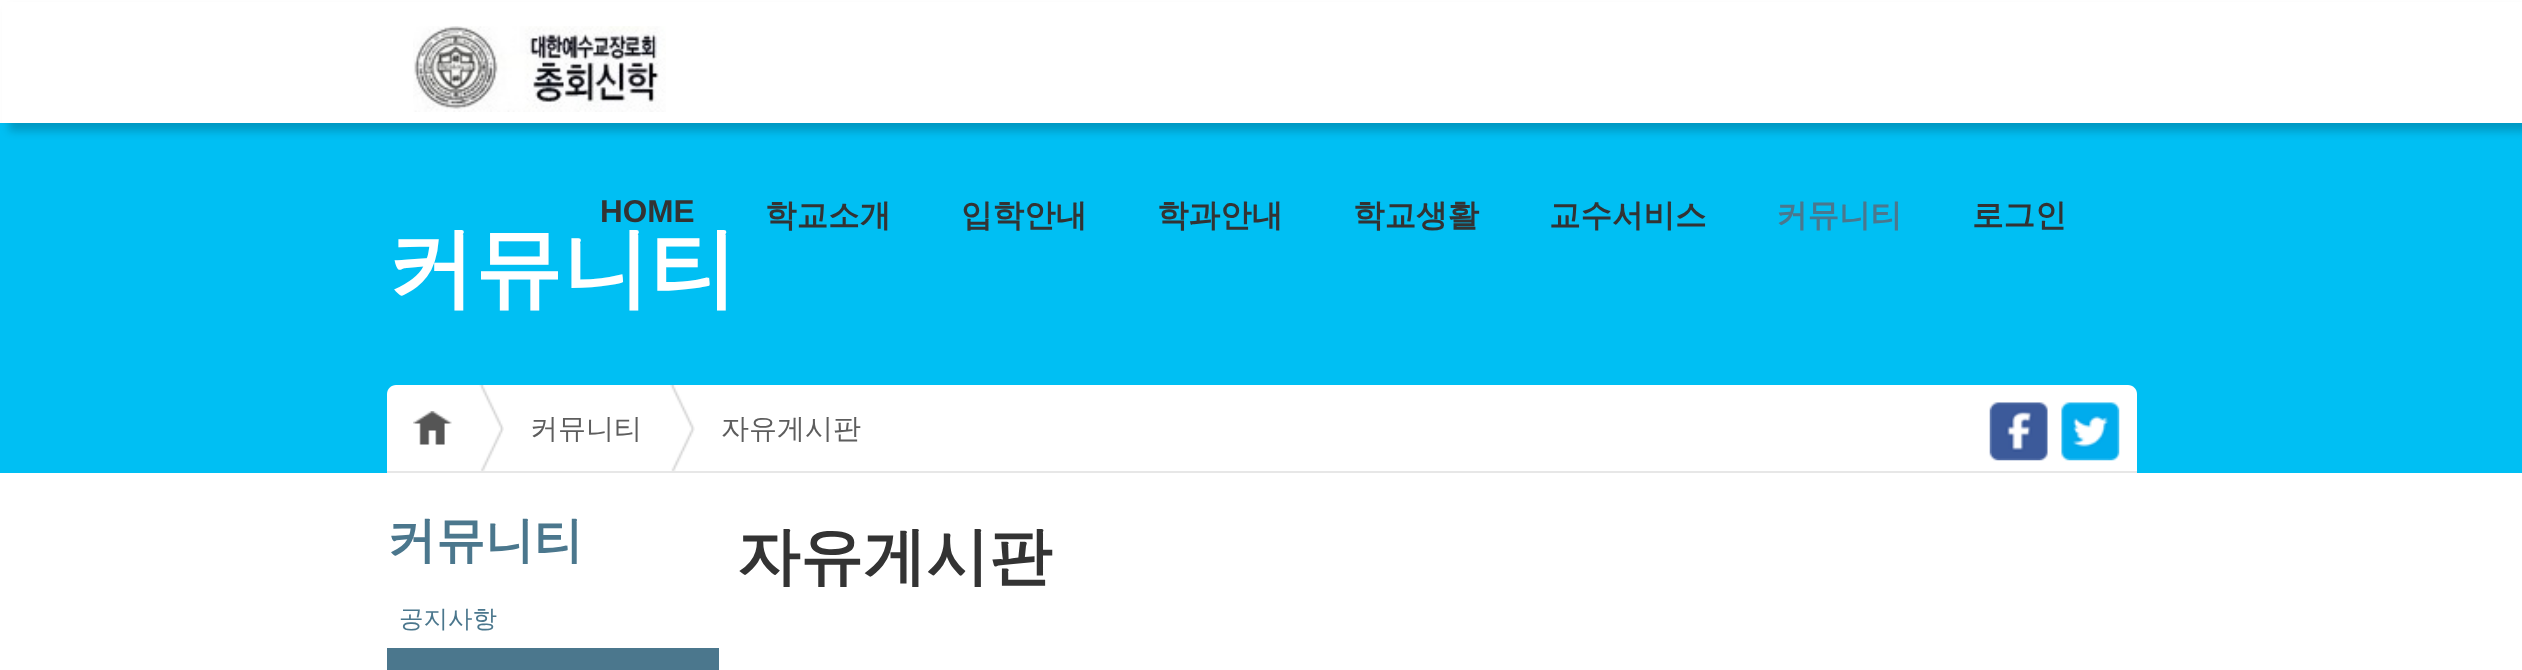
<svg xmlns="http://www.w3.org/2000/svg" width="2522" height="670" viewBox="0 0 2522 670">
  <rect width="100%" height="100%" fill="#fff"/>
  <path d="M0 123h2522v350H0z" fill="#00bff3"/>
  <path d="M9 9h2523v122H9z" fill="#00000033" filter="blur(4.5px)"/>
  <path d="M2 2h2520v121H2z" fill="#fff"/>
  <image x="413" y="26" width="253" height="86" href="img/1.png"/>
  <path d="M396 385H2128C2133 385 2137 389 2137 394V473H387V394C387 389 391 385 396 385Z" fill="#fff"/>
  <path d="M387 471h1750v2H387z" fill="#e7e7e7"/>
  <image x="479" y="385" width="25" height="86" href="img/2.png"/>
  <image x="413" y="411" width="39" height="34" href="img/3.png"/>
  <image x="670" y="385" width="25" height="86" href="img/4.png"/>
  <image x="1989" y="402" width="59" height="59" href="img/5.png"/>
  <image x="2061" y="402" width="59" height="59" href="img/6.png"/>
  <path d="M387 648h332v22H387z" fill="#4b778d"/>
  <text x="600" y="222" font-family="Liberation Sans" font-size="31.5" font-weight="bold" fill="#333">HOME</text>
  <g font-family="WenQuanYi Zen Hei" font-size="31.5" font-weight="bold" fill="#333">
    <text x="765" y="226">학교소개</text>
    <text x="961" y="226">입학안내</text>
    <text x="1157" y="226">학과안내</text>
    <text x="1353" y="226">학교생활</text>
    <text x="1549" y="226">교수서비스</text>
  </g>
  <text x="1776" y="226" font-family="WenQuanYi Zen Hei" font-size="31.5" font-weight="bold" fill="#4b778d">커뮤니티</text>
  <text x="1972" y="226" font-family="WenQuanYi Zen Hei" font-size="31.5" font-weight="bold" fill="#333">로그인</text>
  <text x="387" y="298" font-family="WenQuanYi Zen Hei" font-size="87.5" font-weight="bold" fill="#fff">커뮤니티</text>
  <g font-family="WenQuanYi Zen Hei" font-size="28" font-weight="500" fill="#5d5d5d">
    <text x="530" y="438">커뮤니티</text>
    <text x="721" y="438">자유게시판</text>
  </g>
  <text x="387" y="557" font-family="WenQuanYi Zen Hei" font-size="49" font-weight="bold" fill="#4b778d">커뮤니티</text>
  <text x="399" y="627" font-family="WenQuanYi Zen Hei" font-size="24.5" font-weight="500" fill="#4b778d">공지사항</text>
  <text x="737" y="578" font-family="WenQuanYi Zen Hei" font-size="63" font-weight="bold" fill="#333">자유게시판</text>
</svg>
